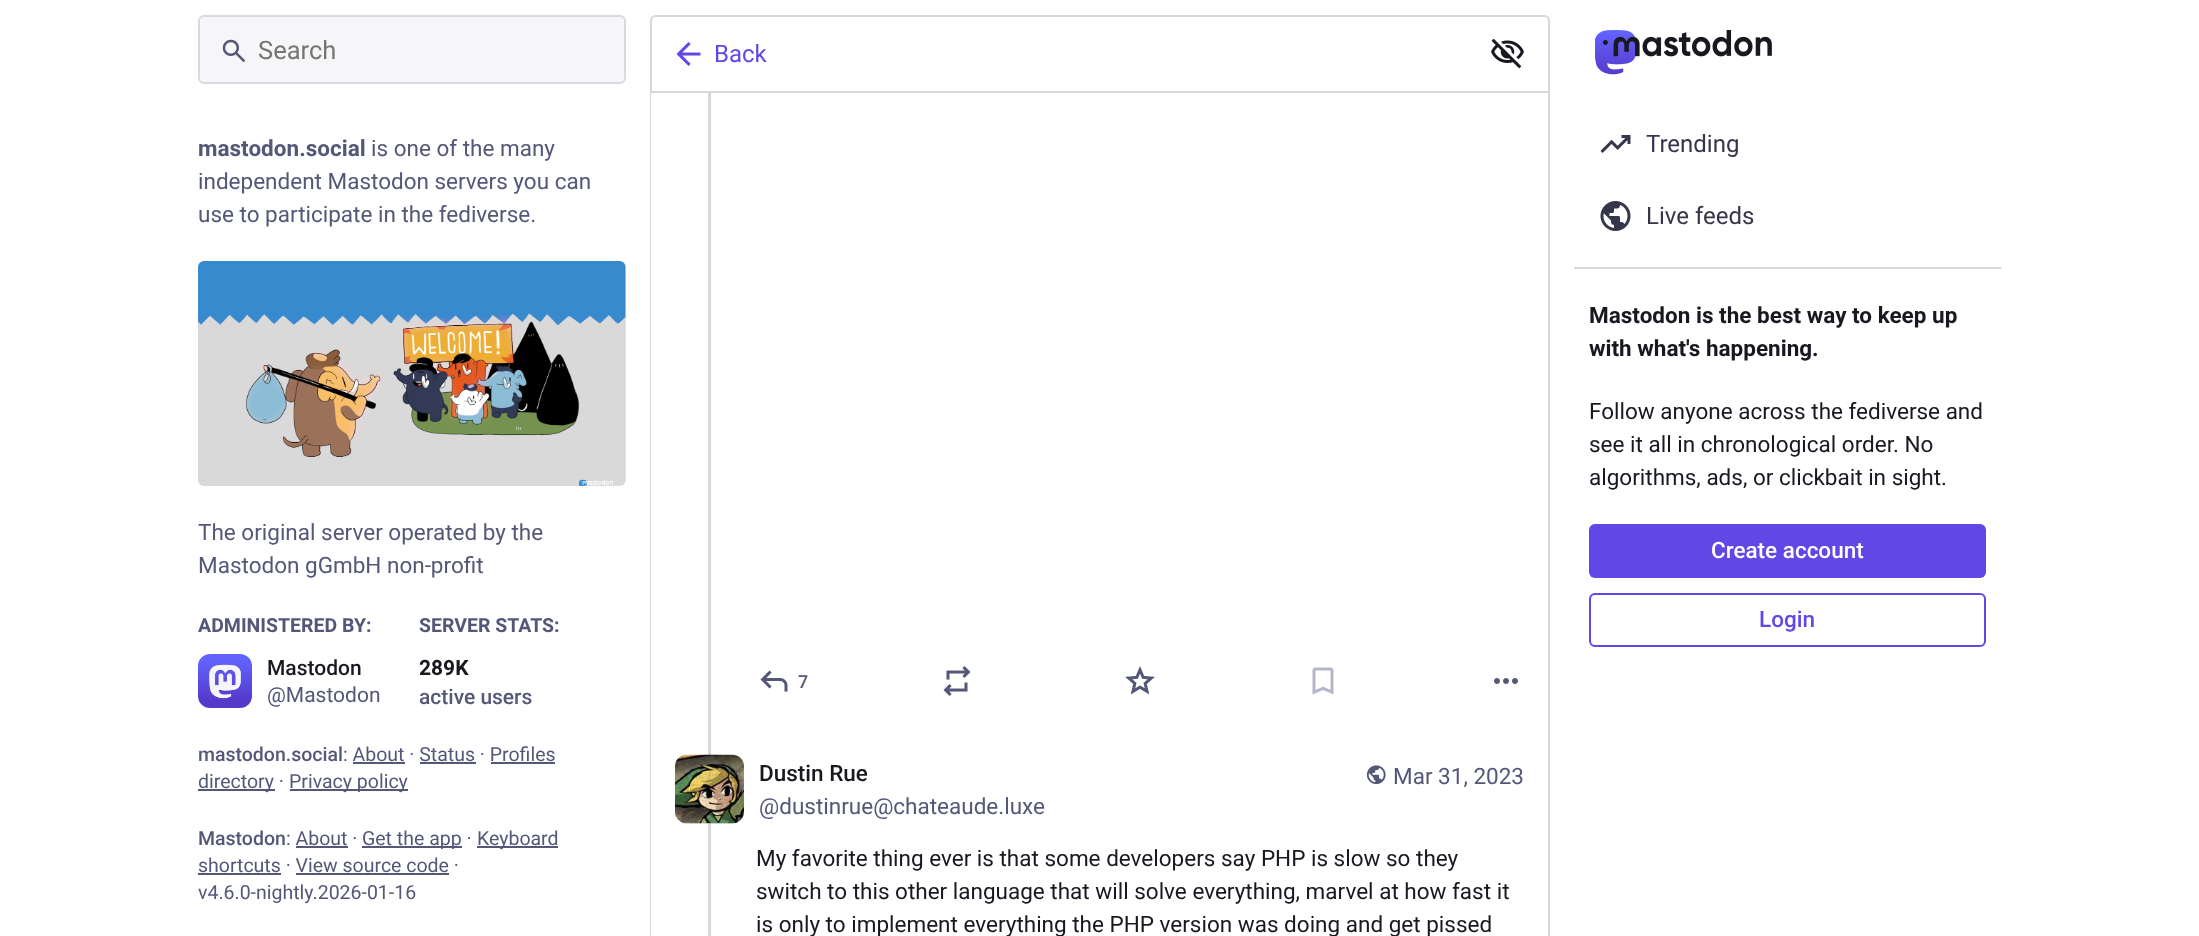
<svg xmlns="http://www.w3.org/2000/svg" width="2199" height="936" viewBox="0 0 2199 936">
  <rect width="100%" height="100%" fill="#fff"/>
  <rect x="199" y="16" width="426" height="67" rx="5" fill="#f6f6f8" stroke="#d8d9e3" stroke-width="2"/>
  <image x="222" y="39" width="24" height="24" href="img/1.png"/>
  <rect x="198" y="261" width="428" height="225" rx="6" fill="#ecedf1"/>
  <image x="198" y="261" width="428" height="225" href="img/2.png"/>
  <image x="198" y="654" width="54" height="54" href="img/3.png"/>
  <path d="M353 762h52v2H353z" fill="#545778"/>
  <path d="M420 762h56v2H420z" fill="#545778"/>
  <path d="M491 762h64v2H491z" fill="#545778"/>
  <path d="M198 789h77v2H198z" fill="#545778"/>
  <path d="M290 789h118v2H290z" fill="#545778"/>
  <path d="M362 846h100v2H362z" fill="#545778"/>
  <path d="M477 846h81v2H477z" fill="#545778"/>
  <path d="M296 846h52v2H296z" fill="#545778"/>
  <path d="M198 873h83v2H198z" fill="#545778"/>
  <path d="M296 873h153v2H296z" fill="#545778"/>
  <path d="M650-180H1550V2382C1550 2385 1547 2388 1544 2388H656C652 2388 650 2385 650 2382ZM651-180H1548V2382C1548 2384 1546 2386 1544 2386H656C653 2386 651 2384 651 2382Z" fill="#d8d8da" fill-rule="evenodd"/>
  <path d="M650 0h900v91H650z" fill="#fff"/>
  <path d="M656 16H1544C1547 16 1549 18 1549 21V92H651V21C651 18 653 16 656 16Z" fill="none" stroke="#d8d8da" stroke-width="2"/>
  <image x="676" y="42" width="25" height="24" href="img/4.png"/>
  <image x="1491" y="38" width="33" height="31" href="img/5.png"/>
  <path d="M708 93h3v843H708z" fill="#d8d8da"/>
  <image x="760" y="670" width="28" height="22" href="img/6.png"/>
  <image x="943" y="666" width="28" height="30" href="img/7.png"/>
  <image x="1125" y="666" width="30" height="29" href="img/8.png"/>
  <image x="1312" y="667" width="22" height="28" href="img/9.png"/>
  <image x="1494" y="678" width="24" height="6" href="img/10.png"/>
  <rect x="675" y="755" width="69" height="69" rx="12" fill="#ecedf1"/>
  <image x="675" y="754" width="69" height="70" href="img/11.png"/>
  <image x="1366" y="765" width="20" height="20" href="img/12.png"/>
  <image x="1595" y="30" width="177" height="45" href="img/13.png"/>
  <image x="1600" y="135" width="31" height="18" href="img/14.png"/>
  <image x="1600" y="201" width="31" height="30" href="img/15.png"/>
  <path d="M1574 267h427v2H1574z" fill="#d8d8da"/>
  <rect x="1589" y="524" width="397" height="54" rx="6" fill="#6147e6"/>
  <rect x="1590" y="594" width="395" height="52" rx="5" fill="none" stroke="#6147e6" stroke-width="2"/>
  <text x="258" y="59" font-family="Roboto" font-size="25.5" fill="#757575">Search</text>
  <text x="198" y="156" font-family="Roboto" font-size="22.5" font-weight="bold" fill="#545778">mastodon.social</text>
  <g font-family="Roboto" font-size="22.5" fill="#545778">
    <text x="371" y="156">is one of the many</text>
    <text x="198" y="189">independent Mastodon servers you can</text>
    <text x="198" y="222">use to participate in the fediverse.</text>
    <text x="198" y="540">The original server operated by the</text>
    <text x="198" y="573">Mastodon gGmbH non-profit</text>
  </g>
  <text x="198" y="632" font-family="Roboto" font-size="19.5" font-weight="bold" fill="#545778">ADMINISTERED BY:</text>
  <text x="267" y="675" font-family="Roboto" font-size="21" font-weight="500" fill="#181821">Mastodon</text>
  <text x="267" y="702" font-family="Roboto" font-size="21" fill="#545778">@Mastodon</text>
  <text x="419" y="632" font-family="Roboto" font-size="19.5" font-weight="bold" fill="#545778">SERVER STATS:</text>
  <text x="419" y="675" font-family="Roboto" font-size="21" font-weight="bold" fill="#181821">289K</text>
  <text x="419" y="704" font-family="Roboto" font-size="21" font-weight="500" fill="#545778">active users</text>
  <text x="198" y="761" font-family="Roboto" font-size="19.5" font-weight="500" fill="#545778">mastodon.social</text>
  <g font-family="Roboto" font-size="19.5" fill="#545778">
    <text x="343" y="761">: About · Status · Profiles</text>
    <text x="198" y="788">directory ·</text>
    <text x="289" y="788">Privacy policy</text>
  </g>
  <text x="198" y="845" font-family="Roboto" font-size="19.5" font-weight="500" fill="#545778">Mastodon</text>
  <g font-family="Roboto" font-size="19.5" fill="#545778">
    <text x="286" y="845">: About ·</text>
    <text x="362" y="845">Get the app ·</text>
    <text x="477" y="845">Keyboard</text>
    <text x="198" y="872">shortcuts · View source code ·</text>
    <text x="198" y="899">v4.6.0-nightly.2026-01-16</text>
  </g>
  <text x="714" y="62" font-family="Roboto" font-size="24" fill="#6147e6">Back</text>
  <text x="798" y="688" font-family="Roboto" font-size="18" font-weight="500" fill="#545778">7</text>
  <text x="759" y="781" font-family="Roboto" font-size="22.5" font-weight="500" fill="#181821">Dustin Rue</text>
  <g font-family="Roboto" font-size="22.5" fill="#545778">
    <text x="759" y="814">@dustinrue@chateaude.luxe</text>
    <text x="1393" y="784">Mar 31, 2023</text>
  </g>
  <g font-family="Roboto" font-size="22.5" fill="#181821">
    <text x="756" y="866">My favorite thing ever is that some developers say PHP is slow so they</text>
    <text x="756" y="899">switch to this other language that will solve everything, marvel at how fast it</text>
    <text x="756" y="932">is only to implement everything the PHP version was doing and get pissed</text>
  </g>
  <g font-family="Roboto" font-size="24" fill="#35364a">
    <text x="1646" y="152">Trending</text>
    <text x="1646" y="224">Live feeds</text>
  </g>
  <g font-family="Roboto" font-size="22.5" font-weight="bold" fill="#181821">
    <text x="1589" y="323">Mastodon is the best way to keep up</text>
    <text x="1589" y="356">with what's happening.</text>
  </g>
  <g font-family="Roboto" font-size="22.5" fill="#181821">
    <text x="1589" y="419">Follow anyone across the fediverse and</text>
    <text x="1589" y="452">see it all in chronological order. No</text>
    <text x="1589" y="485">algorithms, ads, or clickbait in sight.</text>
  </g>
  <text x="1711" y="558" font-family="Roboto" font-size="22.5" font-weight="500" fill="#fff">Create account</text>
  <text x="1759" y="627" font-family="Roboto" font-size="22.5" font-weight="500" fill="#6147e6">Login</text>
</svg>
